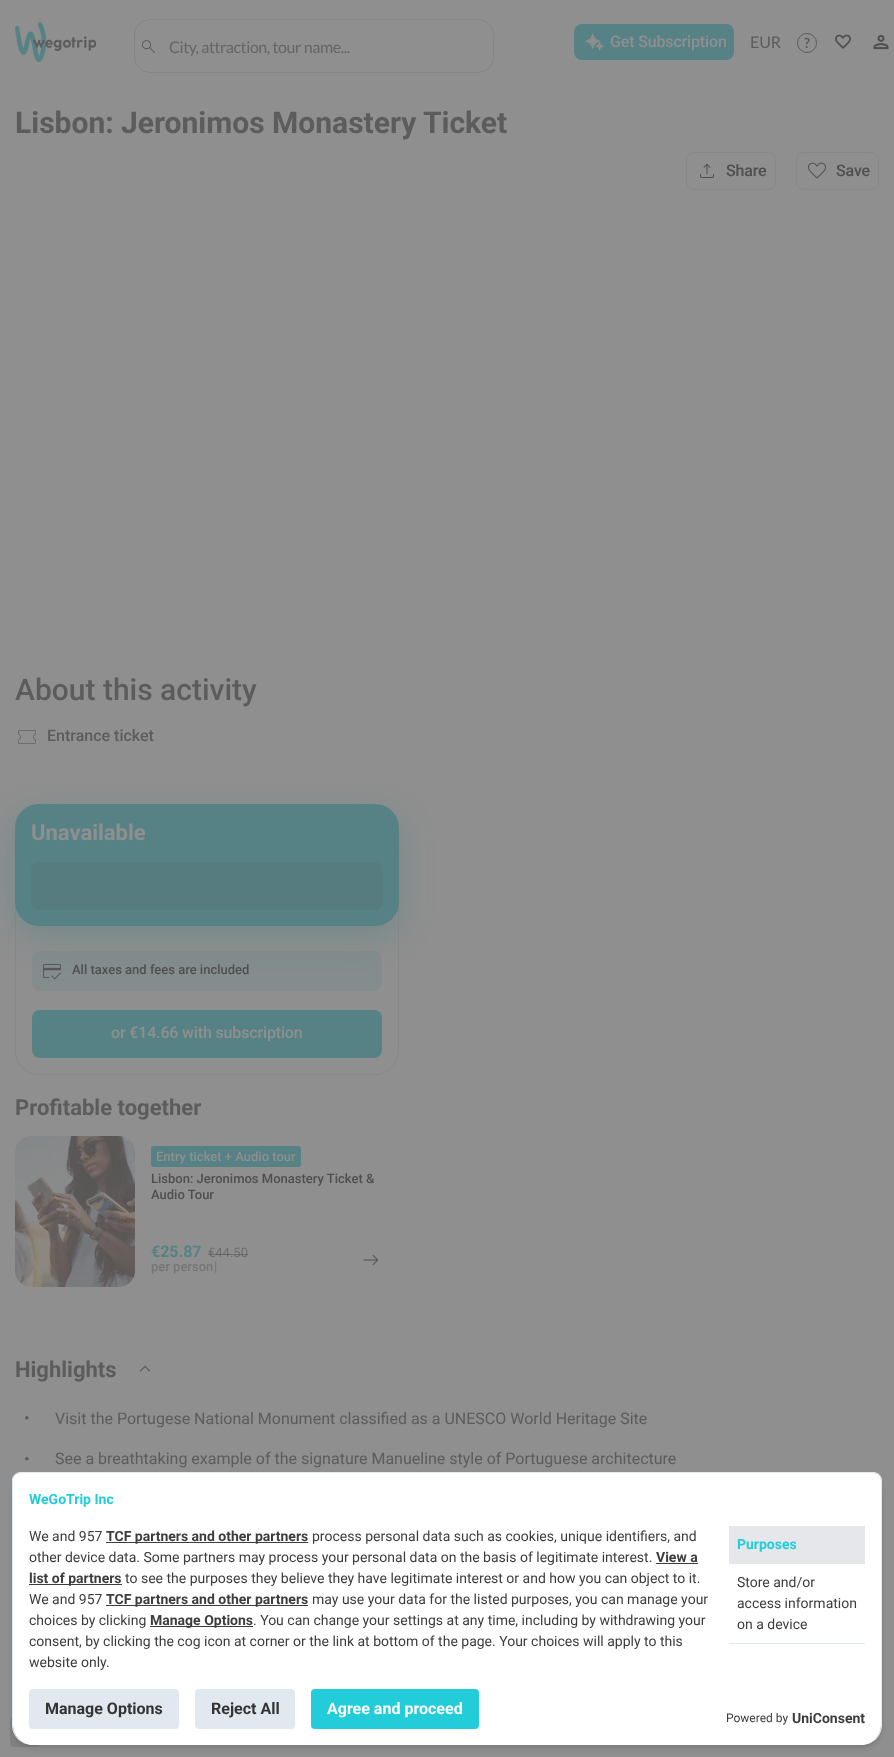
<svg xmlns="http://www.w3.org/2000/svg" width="894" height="1757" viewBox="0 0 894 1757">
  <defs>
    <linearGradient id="g1" gradientUnits="userSpaceOnUse" x1="12" y1="1749" x2="38" y2="1715"><stop offset="0" stop-color="#818181"/><stop offset="1" stop-color="#878787"/></linearGradient>
  </defs>
  <rect width="100%" height="100%" fill="#8f8f8f"/>
  <image x="15" y="22" width="81" height="40" href="img/1.png"/>
  <rect x="134.5" y="19.5" width="359" height="53" rx="15.5" fill="none" stroke="#858585"/>
  <image x="142" y="40" width="13" height="13" href="img/2.png"/>
  <rect x="574" y="24" width="160" height="36" rx="8" fill="#578285"/>
  <image x="585" y="33" width="19" height="18" href="img/3.png"/>
  <circle cx="807" cy="43" r="9.5" fill="none" stroke="#5c5c5c"/>
  <image x="835" y="34" width="16" height="15" href="img/4.png"/>
  <image x="873" y="34" width="16" height="16" href="img/5.png"/>
  <rect x="686.5" y="152.5" width="89" height="37" rx="7.5" fill="none" stroke="#888"/>
  <image x="700" y="163" width="14" height="15" href="img/6.png"/>
  <rect x="796.5" y="152.5" width="82" height="37" rx="7.5" fill="none" stroke="#888"/>
  <image x="808" y="162" width="18" height="17" href="img/7.png"/>
  <image x="18" y="730" width="18" height="14" href="img/8.png"/>
  <path d="M15.5 906.5H398.5V1051C398.5 1064 388 1074.5 375 1074.5H39C26 1074.5 15.5 1064 15.5 1051Z" fill="none" stroke="#888"/>
  <rect x="32" y="951" width="350" height="40" rx="8" fill="#848c8d"/>
  <image x="43" y="964" width="18" height="16" href="img/9.png"/>
  <rect x="15" y="814" width="384" height="122" rx="24" fill="#57828580" filter="blur(15.5px)"/>
  <rect x="15" y="804" width="384" height="122" rx="24" fill="#578285"/>
  <rect x="31" y="862" width="352" height="48" rx="8" fill="#567c7f"/>
  <rect x="32" y="1010" width="350" height="48" rx="8" fill="#578285"/>
  <image x="15" y="1136" width="120" height="151" href="img/10.png"/>
  <rect x="151" y="1146" width="150" height="21" rx="3" fill="#578285"/>
  <image x="363" y="1254" width="16" height="12" href="img/11.png"/>
  <image x="139" y="1365" width="12" height="7" href="img/12.png"/>
  <rect x="10" y="1717" width="30" height="30" rx="4" fill="url(#g1)"/>
  <image x="15" y="1733" width="8" height="9" href="img/13.png"/>
  <rect x="14" y="1476" width="866" height="269" rx="18" fill="#0000001a" filter="blur(2px)"/>
  <rect x="13" y="1477" width="868" height="271" rx="19" fill="#0000001a" filter="blur(3px)"/>
  <path d="M20 1473H874C878 1473 881 1476 881 1480V1725C881 1736 872 1745 862 1745H32C22 1745 13 1736 13 1725V1480C13 1476 16 1473 20 1473Z" fill="#fff"/>
  <path d="M20 1472H874C878 1472 882 1476 882 1480V1725C882 1736 873 1745 862 1745H32C21 1745 12 1736 12 1725V1480C12 1476 16 1472 20 1472ZM20 1473H874C878 1473 881 1476 881 1480V1725C881 1736 872 1745 862 1745H32C22 1745 13 1736 13 1725V1480C13 1476 16 1473 20 1473Z" fill="#e2e8f0" fill-rule="evenodd"/>
  <path d="M106 1542h202v1H106z" fill="#3d3d3d"/>
  <path d="M656 1563h42v1H656z" fill="#3d3d3d"/>
  <path d="M29 1584h93v1H29z" fill="#3d3d3d"/>
  <path d="M106 1605h202v1H106z" fill="#3d3d3d"/>
  <path d="M150 1626h103v1H150z" fill="#3d3d3d"/>
  <path d="M729 1526h136v37H729z" fill="#e5e7eb"/>
  <path d="M729 1563h136v1H729z" fill="#e2e8f0"/>
  <path d="M729 1643h136v1H729z" fill="#e2e8f0"/>
  <rect x="29" y="1689" width="150" height="40" rx="4" fill="#e2e8f0"/>
  <rect x="195" y="1689" width="100" height="40" rx="4" fill="#e2e8f0"/>
  <rect x="311" y="1689" width="168" height="40" rx="4" fill="#22ccd8"/>
  <text x="169" y="53" font-family="Lato" font-size="16" letter-spacing="-0.4" fill="#656565">City, attraction, tour name...</text>
  <text x="610" y="47" font-family="Roboto" font-size="16" font-weight="500" letter-spacing="-0.15" fill="#8f8f8f">Get Subscription</text>
  <text x="750" y="48" font-family="Lato" font-size="16" letter-spacing="-0.15" fill="#5c5c5c">EUR</text>
  <text x="804" y="48" font-family="Lato" font-size="14" font-weight="bold" fill="#5c5c5c">?</text>
  <text x="15" y="133" font-family="Roboto" font-size="30" font-weight="bold" fill="#5c5c5c">Lisbon: Jeronimos Monastery Ticket</text>
  <g font-family="Roboto" font-size="16" font-weight="500" letter-spacing="-0.15" fill="#4f4f4f">
    <text x="726" y="176">Share</text>
    <text x="836" y="176">Save</text>
  </g>
  <text x="15" y="700" font-family="Roboto" font-size="30" font-weight="500" fill="#5c5c5c">About this activity</text>
  <text x="47" y="741" font-family="Roboto" font-size="16" font-weight="500" fill="#5c5c5c">Entrance ticket</text>
  <text x="31" y="840" font-family="Roboto" font-size="22" font-weight="bold" fill="#8f8f8f">Unavailable</text>
  <text x="72" y="974" font-family="Roboto" font-size="13" font-weight="500" fill="#4f4f4f">All taxes and fees are included</text>
  <text x="111" y="1038" font-family="Roboto" font-size="16" font-weight="500" letter-spacing="-0.15" fill="#8f8f8f">or €14.66 with subscription</text>
  <text x="15" y="1115" font-family="Roboto" font-size="22" font-weight="bold" fill="#5c5c5c">Profitable together</text>
  <text x="156" y="1161" font-family="Roboto" font-size="13" font-weight="500" fill="#8f8f8f">Entry ticket + Audio tour</text>
  <g font-family="Roboto" font-size="13" font-weight="500" fill="#4f4f4f">
    <text x="151" y="1183">Lisbon: Jeronimos Monastery Ticket &amp;</text>
    <text x="151" y="1199">Audio Tour</text>
  </g>
  <text x="151" y="1257" font-family="Roboto" font-size="16" font-weight="bold" fill="#578285">€25.87</text>
  <text x="208" y="1257" font-family="Roboto" font-size="13" fill="#6e6e6e">€44.50</text>
  <path d="M208 1254h40v1H208z" fill="#4f4f4f82"/>
  <g font-family="Roboto" font-size="13" font-weight="500" fill="#757575">
    <text x="151" y="1271">per person</text>
    <text x="214" y="1271">|</text>
  </g>
  <text x="15" y="1377" font-family="Roboto" font-size="22" font-weight="bold" fill="#5c5c5c">Highlights</text>
  <text x="24" y="1424" font-family="Roboto" font-size="17" fill="#5c5c5c">•</text>
  <text x="55" y="1424" font-family="Roboto" font-size="16" fill="#5c5c5c">Visit the Portugese National Monument classified as a UNESCO World Heritage Site</text>
  <text x="24" y="1465" font-family="Roboto" font-size="17" fill="#5c5c5c">•</text>
  <text x="55" y="1464" font-family="Roboto" font-size="16" fill="#5c5c5c">See a breathtaking example of the signature Manueline style of Portuguese architecture</text>
  <text x="29" y="1504" font-family="Roboto" font-size="14" font-weight="bold" fill="#22ccd8">WeGoTrip Inc</text>
  <text x="29" y="1541" font-family="Roboto" font-size="14" fill="#3d3d3d">We and 957</text>
  <text x="106" y="1541" font-family="Roboto" font-size="14" font-weight="bold" fill="#3d3d3d">TCF partners and other partners</text>
  <g font-family="Roboto" font-size="14" fill="#3d3d3d">
    <text x="312" y="1541">process personal data such as cookies, unique identifiers, and</text>
    <text x="29" y="1562">other device data. Some partners may process your personal data on the basis of legitimate interest.</text>
  </g>
  <g font-family="Roboto" font-size="14" font-weight="bold" fill="#3d3d3d">
    <text x="656" y="1562">View a</text>
    <text x="29" y="1583">list of partners</text>
  </g>
  <g font-family="Roboto" font-size="14" fill="#3d3d3d">
    <text x="125" y="1583">to see the purposes they believe they have legitimate interest or and how you can object to it.</text>
    <text x="29" y="1604">We and 957</text>
  </g>
  <text x="106" y="1604" font-family="Roboto" font-size="14" font-weight="bold" fill="#3d3d3d">TCF partners and other partners</text>
  <g font-family="Roboto" font-size="14" fill="#3d3d3d">
    <text x="312" y="1604">may use your data for the listed purposes, you can manage your</text>
    <text x="29" y="1625">choices by clicking</text>
  </g>
  <text x="150" y="1625" font-family="Roboto" font-size="14" font-weight="bold" fill="#3d3d3d">Manage Options</text>
  <g font-family="Roboto" font-size="14" fill="#3d3d3d">
    <text x="253" y="1625">. You can change your settings at any time, including by withdrawing your</text>
    <text x="29" y="1646">consent, by clicking the cog icon at corner or the link at bottom of the page. Your choices will apply to this</text>
    <text x="29" y="1667">website only.</text>
  </g>
  <text x="737" y="1549" font-family="Roboto" font-size="14" font-weight="bold" fill="#22ccd8">Purposes</text>
  <g font-family="Roboto" font-size="14" fill="#3d3d3d">
    <text x="737" y="1587">Store and/or</text>
    <text x="737" y="1608">access information</text>
    <text x="737" y="1629">on a device</text>
  </g>
  <g font-family="Roboto" font-size="16" font-weight="bold" fill="#333">
    <text x="45" y="1714">Manage Options</text>
    <text x="211" y="1714">Reject All</text>
  </g>
  <text x="327" y="1714" font-family="Roboto" font-size="16" font-weight="bold" fill="#fff">Agree and proceed</text>
  <text x="726" y="1722" font-family="Roboto" font-size="12" fill="#3d3d3d">Powered by</text>
  <text x="792" y="1723" font-family="Roboto" font-size="14" font-weight="bold" fill="#3d3d3d">UniConsent</text>
</svg>
